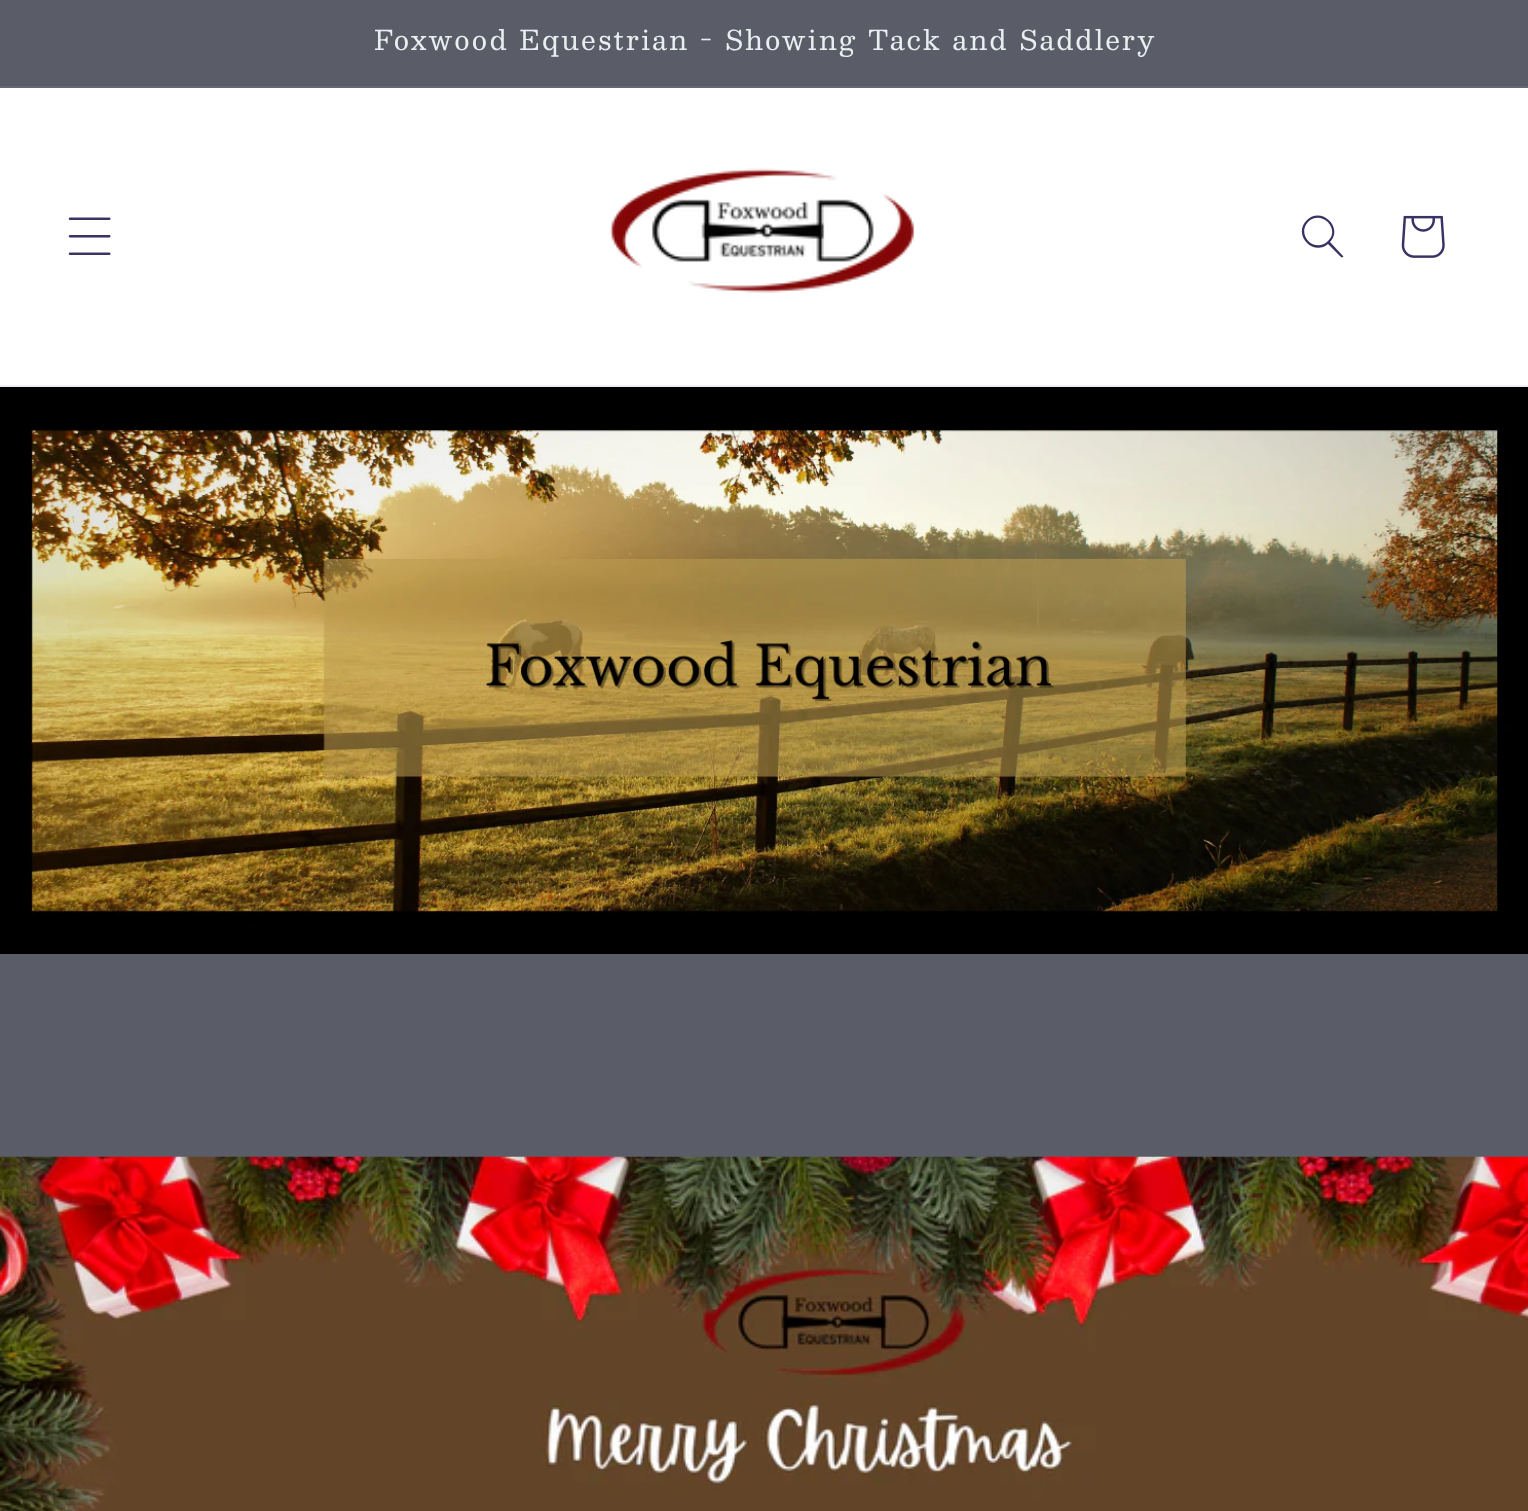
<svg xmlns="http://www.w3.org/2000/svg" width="1528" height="1511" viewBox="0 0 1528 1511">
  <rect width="100%" height="100%" fill="#5a5d68"/>
  <path d="M0 86h1528v2H0z" fill="#656973"/>
  <path d="M0 88h1528v297H0z" fill="#fff"/>
  <path d="M0 385h1528v2H0z" fill="#efeff3"/>
  <image x="68" y="217" width="43" height="38" href="img/1.png"/>
  <image x="609" y="168" width="306" height="125" href="img/2.png"/>
  <path d="M1328 241C1315 254 1296 235 1308 222C1321 209 1341 229 1328 241M1328 244C1313 257 1292 234 1307 220C1321 206 1344 227 1330 242L1343 256C1344 257 1342 258 1341 257Z" fill="#3c3163" fill-rule="evenodd"/>
  <image x="1401" y="215" width="44" height="43" href="img/3.png"/>
  <image x="0" y="387" width="1528" height="567" href="img/4.png"/>
  <image x="0" y="1156" width="1528" height="355" href="img/5.png"/>
  <text x="374" y="50" font-family="Besley" font-size="27" letter-spacing="2.25" fill="#e9eff1">Foxwood Equestrian - Showing Tack and Saddlery</text>
</svg>
